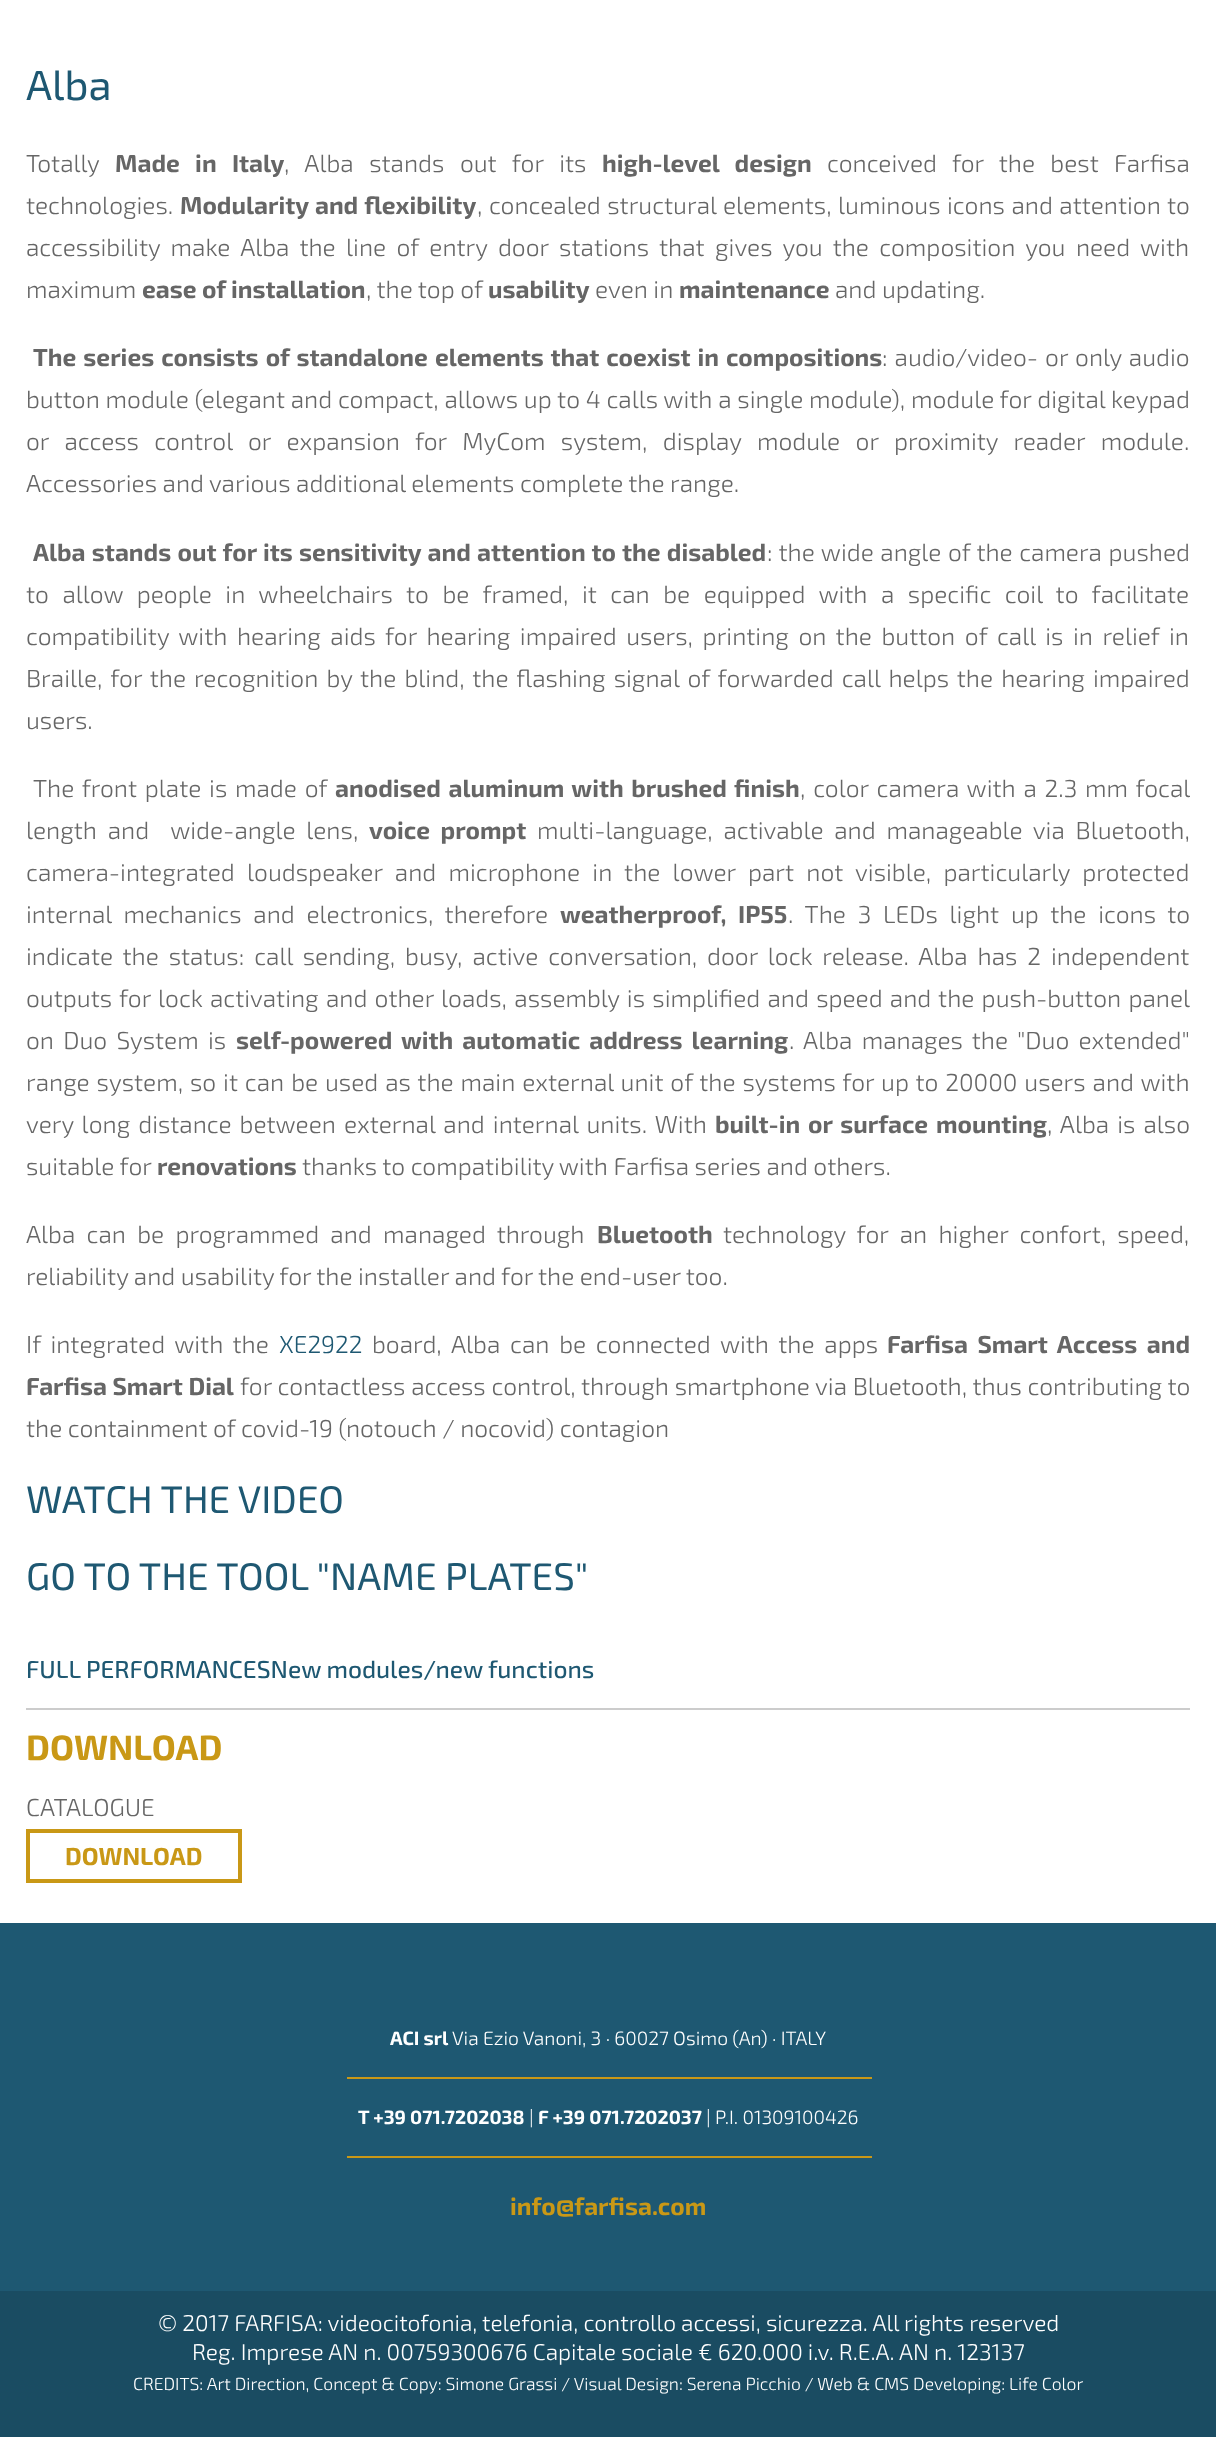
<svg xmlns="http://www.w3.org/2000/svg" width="1216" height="2437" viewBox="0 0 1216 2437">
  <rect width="100%" height="100%" fill="#fff"/>
  <path d="M26 1708h1164v2H26z" fill="#ccc"/>
  <path d="M28 1831h212v50H28z" fill="none" stroke="#c99816" stroke-width="4"/>
  <path d="M0 1923h1216v368H0z" fill="#1e5872"/>
  <path d="M347 2077h525v2H347z" fill="#c99816"/>
  <path d="M347 2156h525v2H347z" fill="#c99816"/>
  <path d="M0 2291h1216v146H0z" fill="#1a4c62"/>
  <text x="26" y="100" font-family="'Exo 2'" font-size="42" fill="#1e5872">Alba</text>
  <text x="26" y="172" font-family="'Exo 2'" font-size="24.5" font-weight="300" fill="#666">Totally</text>
  <text x="115" y="172" word-spacing="10" font-family="'Exo 2'" font-size="24.5" font-weight="bold" fill="#666">Made in Italy</text>
  <text x="284" y="172" word-spacing="10" font-family="'Exo 2'" font-size="24.5" font-weight="300" fill="#666">, Alba stands out for its</text>
  <text x="602" y="172" word-spacing="10" font-family="'Exo 2'" font-size="24.5" font-weight="bold" fill="#666">high-level design</text>
  <g font-family="'Exo 2'" font-size="24.5" font-weight="300" fill="#666">
    <text x="827" y="172" word-spacing="9.9">conceived for the best Farfisa</text>
    <text x="26" y="214">technologies.</text>
  </g>
  <text x="180" y="214" word-spacing="1" font-family="'Exo 2'" font-size="24.5" font-weight="bold" fill="#666">Modularity and flexibility</text>
  <g font-family="'Exo 2'" font-size="24.5" font-weight="300" fill="#666">
    <text x="477" y="214" word-spacing="1">, concealed structural elements, luminous icons and attention to</text>
    <text x="26" y="256" word-spacing="4.9">accessibility make Alba the line of entry door stations that gives you the composition you need with</text>
    <text x="26" y="298">maximum</text>
  </g>
  <text x="142" y="298" font-family="'Exo 2'" font-size="24.5" font-weight="bold" fill="#666">ease of installation</text>
  <text x="366" y="298" font-family="'Exo 2'" font-size="24.5" font-weight="300" fill="#666">, the top of</text>
  <text x="488" y="298" font-family="'Exo 2'" font-size="24.5" font-weight="bold" fill="#666">usability</text>
  <text x="595" y="298" font-family="'Exo 2'" font-size="24.5" font-weight="300" fill="#666">even in</text>
  <text x="679" y="298" font-family="'Exo 2'" font-size="24.5" font-weight="bold" fill="#666">maintenance</text>
  <text x="835" y="298" font-family="'Exo 2'" font-size="24.5" font-weight="300" fill="#666">and updating.</text>
  <text x="33" y="366" word-spacing="1.75" font-family="'Exo 2'" font-size="24.5" font-weight="bold" fill="#666">The series consists of standalone elements that coexist in compositions</text>
  <g font-family="'Exo 2'" font-size="24.5" font-weight="300" fill="#666">
    <text x="882" y="366" word-spacing="1.5">: audio/video- or only audio</text>
    <text x="26" y="408" word-spacing="0.25">button module (elegant and compact, allows up to 4 calls with a single module), module for digital keypad</text>
    <text x="26" y="450" word-spacing="9.9">or access control or expansion for MyCom system, display module or proximity reader module.</text>
    <text x="26" y="492">Accessories and various additional elements complete the range.</text>
  </g>
  <text x="33" y="561" word-spacing="1" font-family="'Exo 2'" font-size="24.5" font-weight="bold" fill="#666">Alba stands out for its sensitivity and attention to the disabled</text>
  <g font-family="'Exo 2'" font-size="24.5" font-weight="300" fill="#666">
    <text x="767" y="561" word-spacing="1">: the wide angle of the camera pushed</text>
    <text x="26" y="603" word-spacing="8">to allow people in wheelchairs to be framed, it can be equipped with a specific coil to facilitate</text>
    <text x="26" y="645" word-spacing="4.1">compatibility with hearing aids for hearing impaired users, printing on the button of call is in relief in</text>
    <text x="26" y="687" word-spacing="2.6">Braille, for the recognition by the blind, the flashing signal of forwarded call helps the hearing impaired</text>
    <text x="26" y="729">users.</text>
    <text x="33" y="797" word-spacing="2.25">The front plate is made of</text>
  </g>
  <text x="335" y="797" word-spacing="2.25" font-family="'Exo 2'" font-size="24.5" font-weight="bold" fill="#666">anodised aluminum with brushed finish</text>
  <g font-family="'Exo 2'" font-size="24.5" font-weight="300" fill="#666">
    <text x="800" y="797" word-spacing="2.25">, color camera with a 2.3 mm focal</text>
    <text x="26" y="839" word-spacing="5.25" xml:space="preserve">length and  wide-angle lens,</text>
  </g>
  <text x="369" y="839" word-spacing="5.25" font-family="'Exo 2'" font-size="24.5" font-weight="bold" fill="#666">voice prompt</text>
  <g font-family="'Exo 2'" font-size="24.5" font-weight="300" fill="#666">
    <text x="537" y="839" word-spacing="5.25">multi-language, activable and manageable via Bluetooth,</text>
    <text x="26" y="881" word-spacing="6.75">camera-integrated loudspeaker and microphone in the lower part not visible, particularly protected</text>
    <text x="26" y="923" word-spacing="6.25">internal mechanics and electronics, therefore</text>
  </g>
  <text x="560" y="923" word-spacing="6.25" font-family="'Exo 2'" font-size="24.5" font-weight="bold" fill="#666">weatherproof, IP55</text>
  <g font-family="'Exo 2'" font-size="24.5" font-weight="300" fill="#666">
    <text x="788" y="923" word-spacing="6.25">. The 3 LEDs light up the icons to</text>
    <text x="26" y="965" word-spacing="4.4">indicate the status: call sending, busy, active conversation, door lock release. Alba has 2 independent</text>
    <text x="26" y="1007" word-spacing="1.75">outputs for lock activating and other loads, assembly is simplified and speed and the push-button panel</text>
    <text x="26" y="1049" word-spacing="3.75">on Duo System is</text>
  </g>
  <text x="236" y="1049" word-spacing="3.75" font-family="'Exo 2'" font-size="24.5" font-weight="bold" fill="#666">self-powered with automatic address learning</text>
  <g font-family="'Exo 2'" font-size="24.5" font-weight="300" fill="#666">
    <text x="789" y="1049" word-spacing="3.75">. Alba manages the "Duo extended"</text>
    <text x="26" y="1091" word-spacing="1.4">range system, so it can be used as the main external unit of the systems for up to 20000 users and with</text>
    <text x="26" y="1133" word-spacing="2.5">very long distance between external and internal units. With</text>
  </g>
  <text x="715" y="1133" word-spacing="2.5" font-family="'Exo 2'" font-size="24.5" font-weight="bold" fill="#666">built-in or surface mounting</text>
  <g font-family="'Exo 2'" font-size="24.5" font-weight="300" fill="#666">
    <text x="1047" y="1133" word-spacing="2.5">, Alba is also</text>
    <text x="26" y="1175">suitable for</text>
  </g>
  <text x="157" y="1175" font-family="'Exo 2'" font-size="24.5" font-weight="bold" fill="#666">renovations</text>
  <g font-family="'Exo 2'" font-size="24.5" font-weight="300" fill="#666">
    <text x="302" y="1175">thanks to compatibility with Farfisa series and others.</text>
    <text x="26" y="1243" word-spacing="5.75">Alba can be programmed and managed through</text>
  </g>
  <text x="597" y="1243" font-family="'Exo 2'" font-size="24.5" font-weight="bold" fill="#666">Bluetooth</text>
  <g font-family="'Exo 2'" font-size="24.5" font-weight="300" fill="#666">
    <text x="723" y="1243" word-spacing="5.75">technology for an higher confort, speed,</text>
    <text x="26" y="1285">reliability and usability for the installer and for the end-user too.</text>
    <text x="26" y="1353" word-spacing="4.1">If integrated with the</text>
  </g>
  <text x="279" y="1353" font-family="'Exo 2'" font-size="24.5" font-weight="300" fill="#1e5872">XE2922</text>
  <text x="372" y="1353" word-spacing="4.25" font-family="'Exo 2'" font-size="24.5" font-weight="300" fill="#666">board, Alba can be connected with the apps</text>
  <g font-family="'Exo 2'" font-size="24.5" font-weight="bold" fill="#666">
    <text x="887" y="1353" word-spacing="4.25">Farfisa Smart Access and</text>
    <text x="26" y="1395" word-spacing="0.25">Farfisa Smart Dial</text>
  </g>
  <g font-family="'Exo 2'" font-size="24.5" font-weight="300" fill="#666">
    <text x="240" y="1395" word-spacing="0.25">for contactless access control, through smartphone via Bluetooth, thus contributing to</text>
    <text x="26" y="1437">the containment of covid-19 (notouch / nocovid) contagion</text>
  </g>
  <g font-family="'Exo 2'" font-size="38.5" fill="#1e5872">
    <text x="26" y="1513">WATCH THE VIDEO</text>
    <text x="26" y="1590">GO TO THE TOOL "NAME PLATES"</text>
  </g>
  <text x="26" y="1678" font-family="'Exo 2'" font-size="24.5" font-weight="500" fill="#1e5872">FULL PERFORMANCESNew modules/new functions</text>
  <text x="26" y="1760" font-family="'Exo 2'" font-size="35" font-weight="bold" fill="#c99816">DOWNLOAD</text>
  <text x="26" y="1816" font-family="'Exo 2'" font-size="24.5" font-weight="300" fill="#666">CATALOGUE</text>
  <text x="65" y="1865" font-family="'Exo 2'" font-size="24.5" font-weight="bold" fill="#c99816">DOWNLOAD</text>
  <text x="390" y="2045" font-family="'Exo 2'" font-size="19.25" font-weight="bold" fill="#fff">ACI srl</text>
  <text x="452" y="2045" font-family="'Exo 2'" font-size="19.25" font-weight="300" fill="#fff">Via Ezio Vanoni, 3 · 60027 Osimo (An) · ITALY</text>
  <text x="358" y="2124" font-family="'Exo 2'" font-size="19.25" font-weight="bold" fill="#fff">T +39 071.7202038</text>
  <text x="529" y="2124" font-family="'Exo 2'" font-size="19.25" font-weight="300" fill="#fff">|</text>
  <text x="538" y="2124" font-family="'Exo 2'" font-size="19.25" font-weight="bold" fill="#fff">F +39 071.7202037</text>
  <text x="706" y="2124" font-family="'Exo 2'" font-size="19.25" font-weight="300" fill="#fff">| P.I. 01309100426</text>
  <text x="510" y="2215" font-family="'Exo 2'" font-size="24.5" font-weight="bold" fill="#c99816">info@farfisa.com</text>
  <g font-family="'Exo 2'" font-size="22.75" font-weight="300" fill="#fff">
    <text x="158" y="2331">© 2017 FARFISA: videocitofonia, telefonia, controllo accessi, sicurezza. All rights reserved</text>
    <text x="192" y="2360">Reg. Imprese AN n. 00759300676 Capitale sociale € 620.000 i.v. R.E.A. AN n. 123137</text>
  </g>
  <text x="133" y="2390" font-family="'Exo 2'" font-size="17.5" font-weight="300" fill="#fff">CREDITS: Art Direction, Concept &amp; Copy: Simone Grassi / Visual Design: Serena Picchio / Web &amp; CMS Developing: Life Color</text>
</svg>
